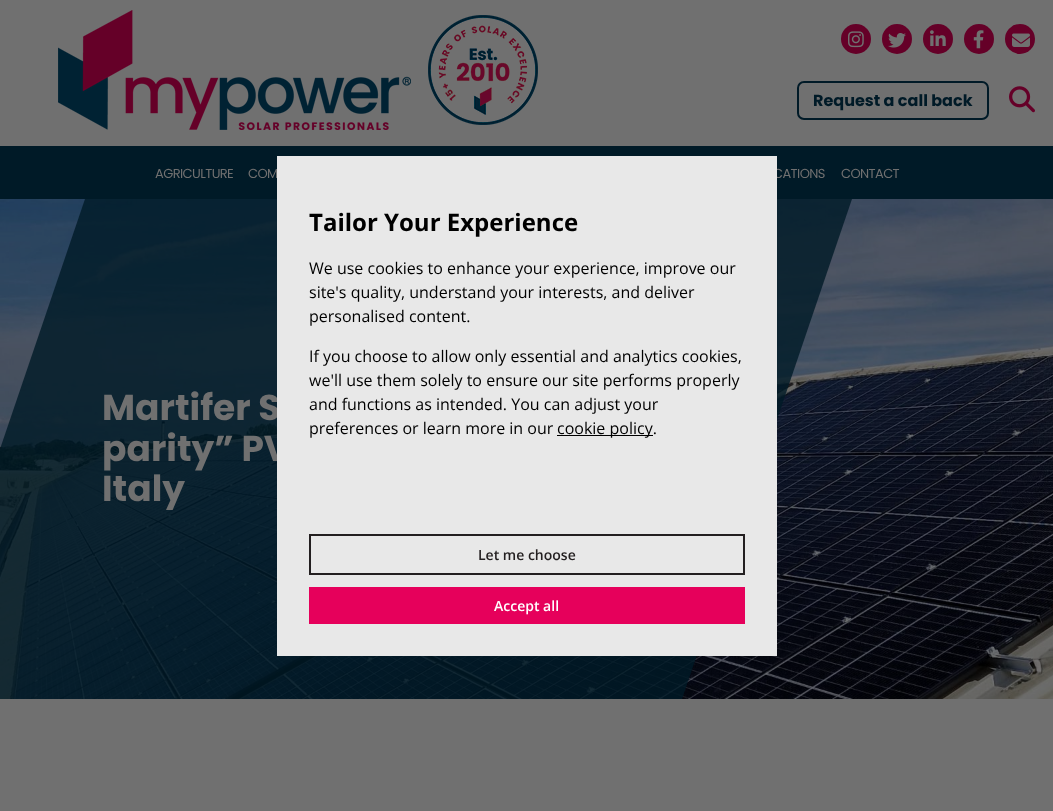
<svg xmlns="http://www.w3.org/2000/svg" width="1053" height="811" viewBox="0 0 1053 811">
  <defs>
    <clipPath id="clip1"><path d="M102 388h550v122H102z"/></clipPath>
  </defs>
  <rect width="100%" height="100%" fill="#707070"/>
  <image x="58" y="10" width="480" height="120" href="img/1.png"/>
  <circle cx="856" cy="39" r="15" fill="#650028"/>
  <image x="848" y="31" width="16" height="17" href="img/2.png"/>
  <circle cx="897" cy="39" r="15" fill="#650028"/>
  <image x="888" y="33" width="18" height="15" href="img/3.png"/>
  <circle cx="938" cy="39" r="15" fill="#650028"/>
  <image x="930" y="30" width="16" height="16" href="img/4.png"/>
  <circle cx="979" cy="39" r="15" fill="#650028"/>
  <image x="973" y="30" width="11" height="19" href="img/5.png"/>
  <circle cx="1020" cy="39" r="15" fill="#650028"/>
  <image x="1012" y="33" width="18" height="14" href="img/6.png"/>
  <rect x="798" y="82" width="190" height="37" rx="6" fill="none" stroke="#001a27" stroke-width="2"/>
  <image x="1009" y="86" width="26" height="27" href="img/7.png"/>
  <path d="M0 146h1053v53H0z" fill="#001a27"/>
  <image x="0" y="199" width="1053" height="500" href="img/8.png"/>
  <path d="M85 199L0 449V699H682L852 199Z" fill="#001a27cc"/>
  <text x="813" y="106" font-family="Poppins" font-size="16" font-weight="bold" fill="#001a27">Request a call back</text>
  <g font-family="Poppins" font-size="13" letter-spacing="-0.6" fill="#707070">
    <text x="155" y="178">AGRICULTURE</text>
    <text x="248" y="178">COM</text>
    <text x="773" y="178">CATIONS</text>
    <text x="841" y="178">CONTACT</text>
  </g>
  <g font-family="Poppins" font-size="36" font-weight="bold" fill="#707070">
    <text x="102" y="420">Martifer S</text>
    <text x="102" y="461">parity” PV</text>
  </g>
  <g clip-path="url(#clip1)">
    <text x="102" y="501" font-family="Poppins" font-size="36" font-weight="bold" fill="#707070">Italy</text>
  </g>
  <path d="M277 156h500v500H277z" fill="#e8e8e8"/>
  <text x="309" y="231" font-family="Open Sans" font-size="24" font-weight="bold" fill="#000">Tailor Your Experience</text>
  <g font-family="Open Sans" font-size="16" fill="#000">
    <text x="309" y="274">We use cookies to enhance your experience, improve our</text>
    <text x="309" y="298">site's quality, understand your interests, and deliver</text>
    <text x="309" y="322">personalised content.</text>
    <text x="309" y="362">If you choose to allow only essential and analytics cookies,</text>
    <text x="309" y="386">we'll use them solely to ensure our site performs properly</text>
    <text x="309" y="410">and functions as intended. You can adjust your</text>
    <text x="309" y="434">preferences or learn more in our</text>
  </g>
  <path d="M557 435h96v1H557z" fill="#000"/>
  <text x="557" y="434" font-family="Open Sans" font-size="16" fill="#000">cookie policy.</text>
  <path d="M310 535h434v39H310z" fill="none" stroke="#231f20" stroke-width="2"/>
  <text x="478" y="560" font-family="Open Sans" font-size="14" font-weight="600" fill="#231f20">Let me choose</text>
  <path d="M309 587h436v37H309z" fill="#e6005b"/>
  <text x="494" y="611" font-family="Open Sans" font-size="14" font-weight="600" fill="#fff">Accept all</text>
</svg>
